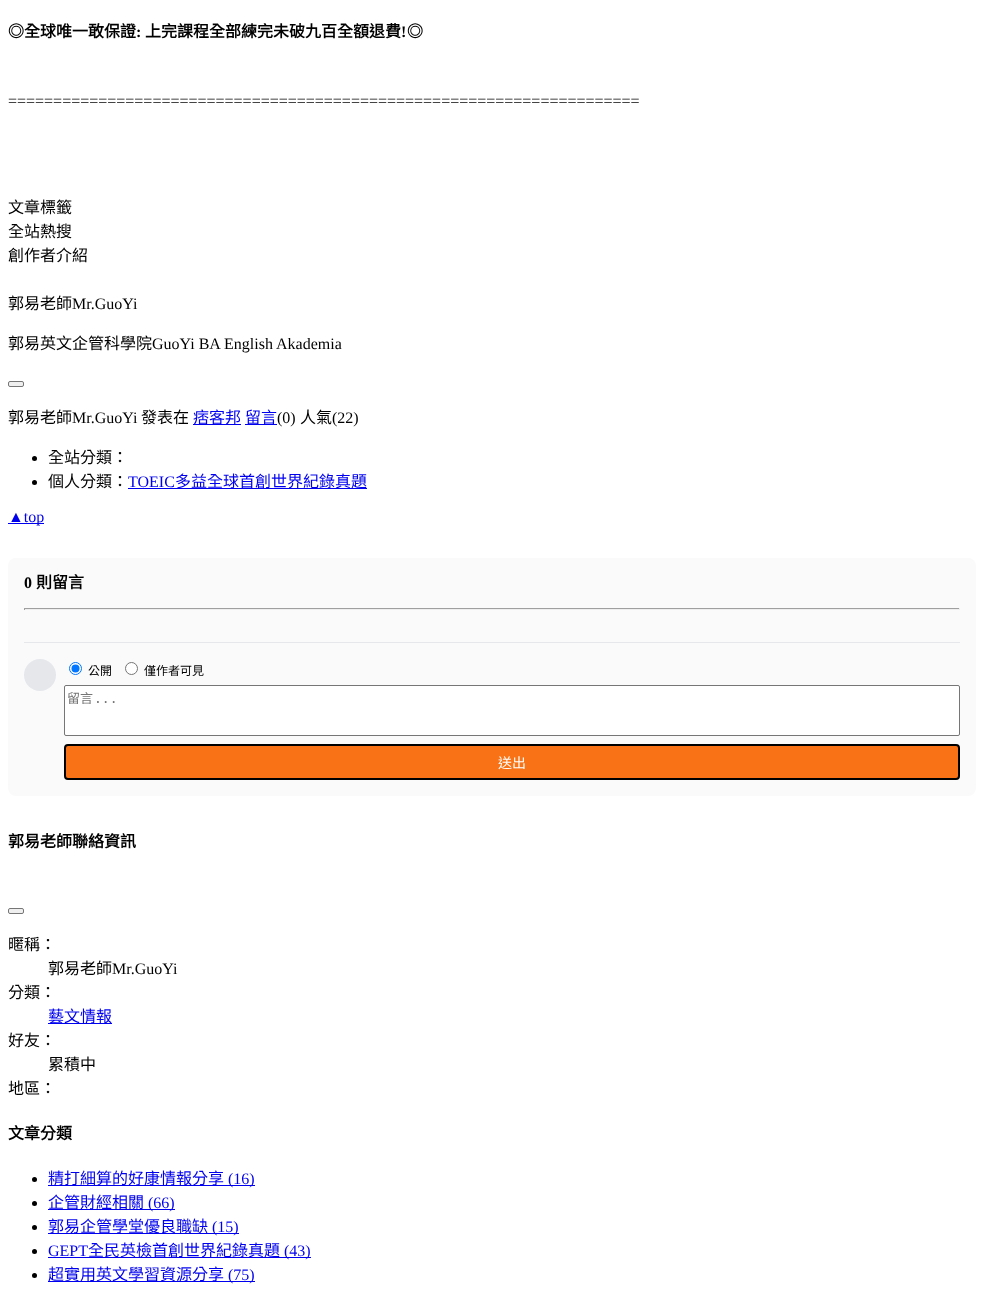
<svg xmlns="http://www.w3.org/2000/svg" width="984" height="1292" viewBox="0 0 984 1292">
  <rect width="100%" height="100%" fill="#fff"/>
  <rect x="8.5" y="381.5" width="15" height="5" rx="1.5" fill="#efefef" stroke="#767676"/>
  <path d="M193 424h48v1H193z" fill="#00e"/>
  <path d="M245 424h32v1H245z" fill="#00e"/>
  <circle cx="34.5" cy="458.5" r="2.5" fill="#000"/>
  <circle cx="34.5" cy="482.5" r="2.5" fill="#000"/>
  <path d="M128 488h239v1H128z" fill="#00e"/>
  <path d="M8 523h36v1H8z" fill="#00e"/>
  <rect x="8" y="558" width="968" height="238" rx="8" fill="#fafafa"/>
  <path d="M24 608h936v1H24z" fill="#9f9f9f"/>
  <path d="M959 608h1v2H959z" fill="#eee"/>
  <path d="M24 609h936v1H24z" fill="#eee"/>
  <path d="M24 608h1v2H24z" fill="#9f9f9f"/>
  <path d="M24 642h936v1H24z" fill="#e5e7eb"/>
  <circle cx="40" cy="675" r="16" fill="#e5e7eb"/>
  <circle cx="75.5" cy="668.5" r="6" fill="#fff" stroke="#0075ff"/>
  <circle cx="75.5" cy="668.5" r="4" fill="#0075ff"/>
  <circle cx="131.5" cy="668.5" r="6" fill="#fff" stroke="#767676"/>
  <rect x="64.5" y="685.5" width="895" height="50" rx="1.5" fill="#fff" stroke="#767676"/>
  <rect x="65" y="745" width="894" height="34" rx="3" fill="#f97316" stroke="#000" stroke-width="2"/>
  <rect x="8.5" y="908.5" width="15" height="5" rx="1.5" fill="#efefef" stroke="#767676"/>
  <path d="M48 1023h64v1H48z" fill="#00e"/>
  <circle cx="34.5" cy="1179.5" r="2.5" fill="#000"/>
  <path d="M48 1185h207v1H48z" fill="#00e"/>
  <circle cx="34.5" cy="1203.5" r="2.5" fill="#000"/>
  <path d="M48 1209h127v1H48z" fill="#00e"/>
  <circle cx="34.5" cy="1227.5" r="2.5" fill="#000"/>
  <path d="M48 1233h191v1H48z" fill="#00e"/>
  <circle cx="34.5" cy="1251.5" r="2.5" fill="#000"/>
  <path d="M48 1257h263v1H48z" fill="#00e"/>
  <circle cx="34.5" cy="1275.5" r="2.5" fill="#000"/>
  <path d="M48 1281h207v1H48z" fill="#00e"/>
  <text x="8" y="37" font-family="Noto Sans CJK TC" font-size="16" font-weight="bold" fill="#000">◎全球唯一敢保證</text>
  <text x="136" y="37" font-family="Liberation Serif" font-size="16" font-weight="bold" fill="#000">:</text>
  <text x="145" y="37" font-family="Noto Sans CJK TC" font-size="16" font-weight="bold" fill="#000">上完課程全部練完未破九百全額退費</text>
  <text x="401" y="37" font-family="Liberation Serif" font-size="16" font-weight="bold" fill="#000">!</text>
  <text x="407" y="37" font-family="Noto Sans CJK TC" font-size="16" font-weight="bold" fill="#000">◎</text>
  <text x="8" y="106" font-family="Liberation Serif" font-size="16" fill="#000">======================================================================</text>
  <g font-family="Noto Sans CJK TC" font-size="16" fill="#000">
    <text x="8" y="213">文章標籤</text>
    <text x="8" y="237">全站熱搜</text>
    <text x="8" y="261">創作者介紹</text>
    <text x="8" y="309">郭易老師</text>
  </g>
  <text x="72" y="309" font-family="Liberation Serif" font-size="16" fill="#000">Mr.GuoYi</text>
  <text x="8" y="349" font-family="Noto Sans CJK TC" font-size="16" fill="#000">郭易英文企管科學院</text>
  <text x="152" y="349" font-family="Liberation Serif" font-size="16" fill="#000">GuoYi BA English Akademia</text>
  <text x="8" y="423" font-family="Noto Sans CJK TC" font-size="16" fill="#000">郭易老師</text>
  <text x="72" y="423" font-family="Liberation Serif" font-size="16" fill="#000">Mr.GuoYi</text>
  <text x="141" y="423" font-family="Noto Sans CJK TC" font-size="16" fill="#000">發表在</text>
  <g font-family="Noto Sans CJK TC" font-size="16" fill="#00e">
    <text x="193" y="423">痞客邦</text>
    <text x="245" y="423">留言</text>
  </g>
  <text x="277" y="423" font-family="Liberation Serif" font-size="16" fill="#000">(0)</text>
  <text x="300" y="423" font-family="Noto Sans CJK TC" font-size="16" fill="#000">人氣</text>
  <text x="332" y="423" font-family="Liberation Serif" font-size="16" fill="#000">(22)</text>
  <g font-family="Noto Sans CJK TC" font-size="16" fill="#000">
    <text x="48" y="463">全站分類：</text>
    <text x="48" y="487">個人分類：</text>
  </g>
  <text x="128" y="487" font-family="Liberation Serif" font-size="16" fill="#00e">TOEIC</text>
  <text x="175" y="487" font-family="Noto Sans CJK TC" font-size="16" fill="#00e">多益全球首創世界紀錄真題</text>
  <text x="8" y="522" font-family="Liberation Serif" font-size="16" fill="#00e">▲top</text>
  <text x="24" y="588" font-family="Liberation Serif" font-size="16" font-weight="bold" fill="#000">0</text>
  <text x="36" y="588" font-family="Noto Sans CJK TC" font-size="16" font-weight="bold" fill="#000">則留言</text>
  <g font-family="Noto Sans CJK TC" font-size="12" fill="#000">
    <text x="88" y="675">公開</text>
    <text x="144" y="675">僅作者可見</text>
  </g>
  <text x="67" y="703" font-family="Noto Sans CJK TC" font-size="13" fill="#757575">留言</text>
  <text x="94" y="703" font-family="DejaVu Sans Mono" font-size="13" fill="#757575">...</text>
  <text x="498" y="768" font-family="Noto Sans CJK TC" font-size="14" fill="#fff">送出</text>
  <text x="8" y="847" font-family="Noto Sans CJK TC" font-size="16" font-weight="bold" fill="#000">郭易老師聯絡資訊</text>
  <g font-family="Noto Sans CJK TC" font-size="16" fill="#000">
    <text x="8" y="950">暱稱：</text>
    <text x="48" y="974">郭易老師</text>
  </g>
  <text x="112" y="974" font-family="Liberation Serif" font-size="16" fill="#000">Mr.GuoYi</text>
  <text x="8" y="998" font-family="Noto Sans CJK TC" font-size="16" fill="#000">分類：</text>
  <text x="48" y="1022" font-family="Noto Sans CJK TC" font-size="16" fill="#00e">藝文情報</text>
  <g font-family="Noto Sans CJK TC" font-size="16" fill="#000">
    <text x="8" y="1046">好友：</text>
    <text x="48" y="1070">累積中</text>
    <text x="8" y="1094">地區：</text>
  </g>
  <text x="8" y="1139" font-family="Noto Sans CJK TC" font-size="16" font-weight="bold" fill="#000">文章分類</text>
  <text x="48" y="1184" font-family="Noto Sans CJK TC" font-size="16" fill="#00e">精打細算的好康情報分享</text>
  <text x="228" y="1184" font-family="Liberation Serif" font-size="16" fill="#00e">(16)</text>
  <text x="48" y="1208" font-family="Noto Sans CJK TC" font-size="16" fill="#00e">企管財經相關</text>
  <text x="148" y="1208" font-family="Liberation Serif" font-size="16" fill="#00e">(66)</text>
  <text x="48" y="1232" font-family="Noto Sans CJK TC" font-size="16" fill="#00e">郭易企管學堂優良職缺</text>
  <g font-family="Liberation Serif" font-size="16" fill="#00e">
    <text x="212" y="1232">(15)</text>
    <text x="48" y="1256">GEPT</text>
  </g>
  <text x="88" y="1256" font-family="Noto Sans CJK TC" font-size="16" fill="#00e">全民英檢首創世界紀錄真題</text>
  <text x="284" y="1256" font-family="Liberation Serif" font-size="16" fill="#00e">(43)</text>
  <text x="48" y="1280" font-family="Noto Sans CJK TC" font-size="16" fill="#00e">超實用英文學習資源分享</text>
  <text x="228" y="1280" font-family="Liberation Serif" font-size="16" fill="#00e">(75)</text>
</svg>
